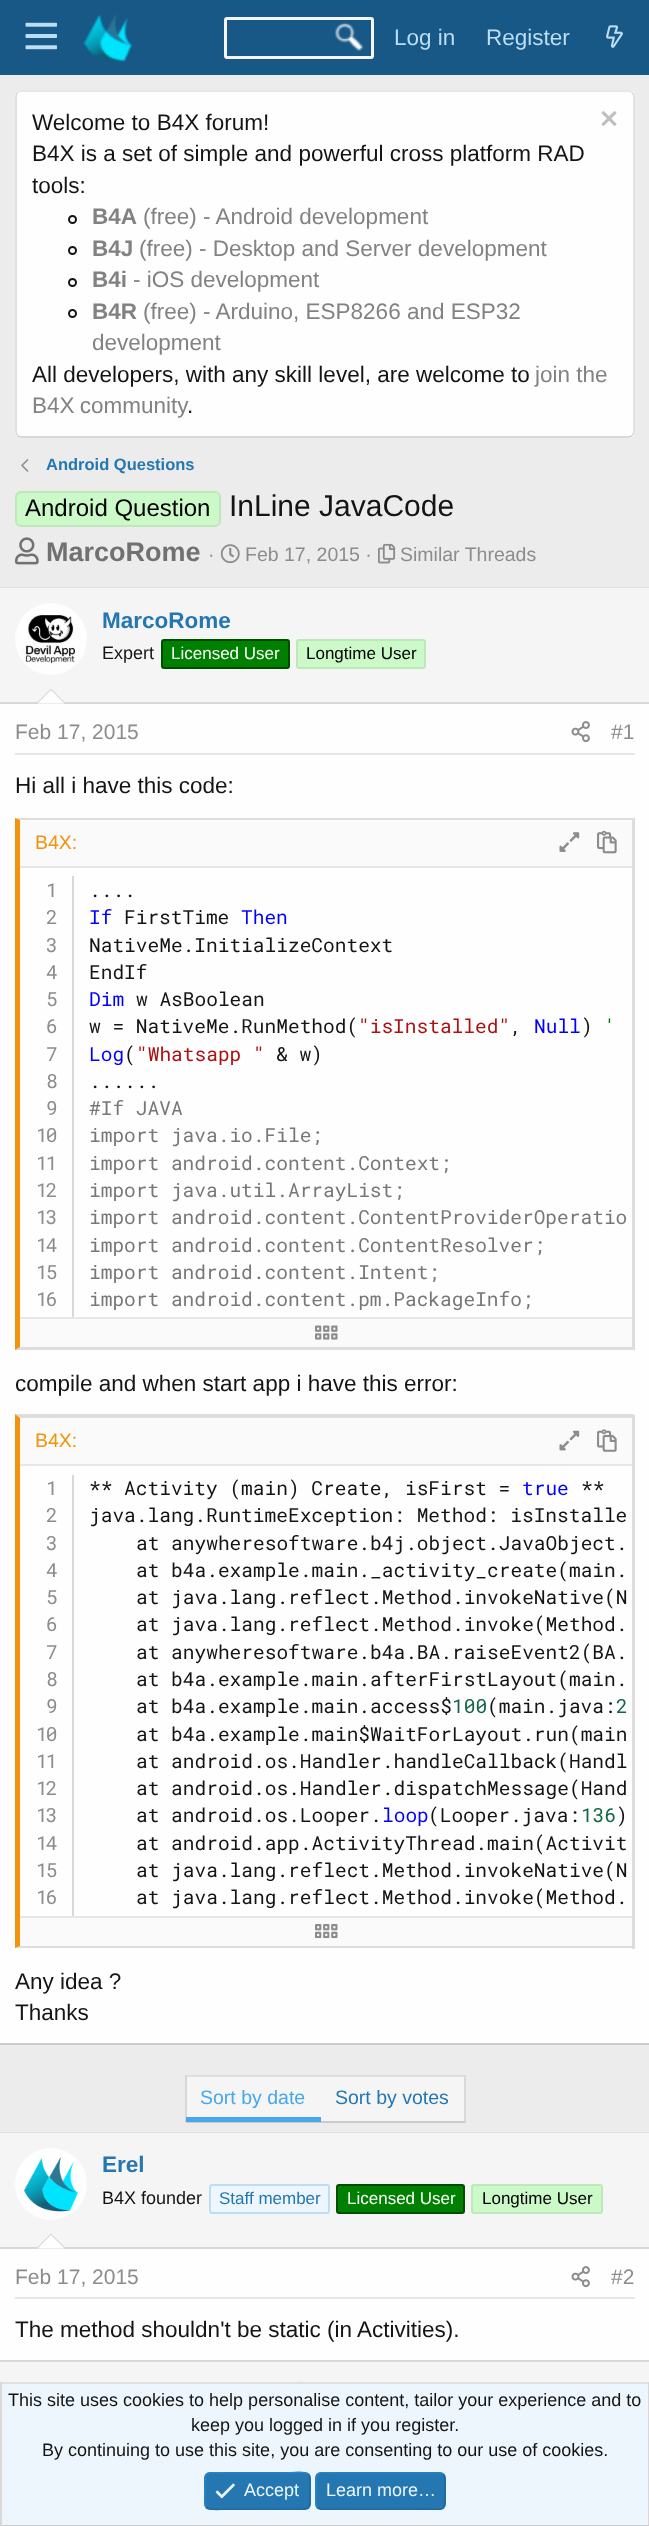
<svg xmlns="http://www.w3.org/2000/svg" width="649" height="2526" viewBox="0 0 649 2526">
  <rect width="100%" height="100%" fill="#ececec"/>
  <path d="M0 0h649v75H0z" fill="#185886"/>
  <image x="25" y="22" width="32" height="28" href="img/1.png"/>
  <image x="83" y="14" width="50" height="48" href="img/2.png"/>
  <image x="334" y="22" width="30" height="30" href="img/3.png"/>
  <rect x="225.5" y="18.5" width="147" height="39" rx="1.5" fill="none" stroke="#f5f5f5" stroke-width="3"/>
  <image x="606" y="25" width="17" height="23" href="img/4.png"/>
  <rect x="15" y="90" width="620" height="348" rx="6" fill="#fefefe"/>
  <path d="M17.5 92.5C18.5 91.5 19.5 91 21 91H628.5C630 91 631 91.5 632 92.5" fill="none" stroke="#dfdfdf" stroke-width="1.5"/>
  <path d="M632 92.5C633 93.5 634 94.5 634 96V432C634 433.5 633 434.5 632 435.5" fill="none" stroke="#d8d8d8" stroke-width="1.5"/>
  <path d="M632 435.5C631 436.5 630 437 628.5 437H21C19.5 437 18.5 436.5 17.5 435.5" fill="none" stroke="#cbcbcb" stroke-width="1.5"/>
  <path d="M17.5 435.5C16.5 434.5 16 433.5 16 432V96C16 94.5 16.5 93.5 17.5 92.5" fill="none" stroke="#d8d8d8" stroke-width="1.5"/>
  <image x="601" y="111" width="16" height="15" href="img/5.png"/>
  <circle cx="72.5" cy="219.5" r="3.5" fill="none" stroke="#141414" stroke-width="2"/>
  <circle cx="72.5" cy="250.5" r="3.5" fill="none" stroke="#141414" stroke-width="2"/>
  <circle cx="72.5" cy="282.5" r="3.5" fill="none" stroke="#141414" stroke-width="2"/>
  <circle cx="72.5" cy="313.5" r="3.5" fill="none" stroke="#141414" stroke-width="2"/>
  <image x="21" y="459" width="8" height="13" href="img/6.png"/>
  <rect x="16" y="492" width="204" height="34" rx="5" fill="#ccf9c8" stroke="#bee8ba" stroke-width="2"/>
  <image x="15" y="537" width="24" height="28" href="img/7.png"/>
  <image x="220" y="544" width="20" height="20" href="img/8.png"/>
  <image x="378" y="543" width="18" height="21" href="img/9.png"/>
  <path d="M0 704h649v1339H0z" fill="#fefefe"/>
  <path d="M0 587h649v1H0z" fill="#dfdfdf"/>
  <path d="M0 2043h649v2H0z" fill="#cbcbcb"/>
  <path d="M0 588h649v114H0z" fill="#f5f5f5"/>
  <path d="M0 702h649v2H0z" fill="#d8d8d8"/>
  <circle cx="51" cy="639" r="36" fill="#fefefe"/>
  <image x="21" y="615" width="54" height="49" href="img/10.png"/>
  <rect x="162" y="640" width="127" height="28" rx="2" fill="#008000" stroke="#004d00" stroke-width="2"/>
  <rect x="297" y="640" width="128" height="28" rx="2" fill="#ccf9c8" stroke="#bee8ba" stroke-width="2"/>
  <path d="M66 703.5H36L51 688.5Z" fill="#d8d8d8"/>
  <path d="M64.5 703.5H37.5L51 690Z" fill="#fefefe"/>
  <path d="M15 753h620v2H15z" fill="#e7e7e7"/>
  <image x="571" y="721" width="19" height="22" href="img/11.png"/>
  <path d="M15 818H634L632 820H20Z" fill="#ddd"/>
  <path d="M632 818h3v532H632z" fill="#ddd"/>
  <path d="M634 1350H15L20 1347H632Z" fill="#ddd"/>
  <path d="M15 1350V818L20 820V1347Z" fill="#f2930d"/>
  <path d="M20 821h612v45H20z" fill="#fafafa"/>
  <path d="M20 866h612v2H20z" fill="#e7e7e7"/>
  <image x="559" y="832" width="21" height="20" href="img/12.png"/>
  <image x="597" y="830" width="20" height="24" href="img/13.png"/>
  <path d="M72 876h2v441H72z" fill="#d8d8d8"/>
  <path d="M20 1319h612v28H20z" fill="#fafafa"/>
  <path d="M20 1317h612v2H20z" fill="#e7e7e7"/>
  <image x="315" y="1325" width="23" height="15" href="img/14.png"/>
  <path d="M15 1414H634L632 1418H20Z" fill="#ddd"/>
  <path d="M632 1415h3v534H632z" fill="#ddd"/>
  <path d="M634 1948H15L20 1946H632Z" fill="#ddd"/>
  <path d="M15 1948V1414L20 1418V1946Z" fill="#f2930d"/>
  <path d="M20 1418h612v46H20z" fill="#fafafa"/>
  <path d="M20 1464h612v2H20z" fill="#e7e7e7"/>
  <image x="559" y="1430" width="21" height="21" href="img/15.png"/>
  <image x="597" y="1429" width="20" height="23" href="img/16.png"/>
  <path d="M72 1475h2v441H72z" fill="#d8d8d8"/>
  <path d="M20 1918h612v28H20z" fill="#fafafa"/>
  <path d="M20 1916h612v2H20z" fill="#e7e7e7"/>
  <image x="315" y="1924" width="23" height="15" href="img/17.png"/>
  <path d="M187 2077h277v44H187z" fill="#f5f5f5"/>
  <path d="M185 2075h280v2H185z" fill="#dfdfdf"/>
  <path d="M464 2075h2v48H464z" fill="#d8d8d8"/>
  <path d="M185 2121h280v2H185z" fill="#cbcbcb"/>
  <path d="M185 2075h2v48H185z" fill="#d8d8d8"/>
  <path d="M186 2117h135v5H186z" fill="#47a7eb"/>
  <path d="M0 2249h649v111H0z" fill="#fefefe"/>
  <path d="M0 2132h649v1H0z" fill="#dfdfdf"/>
  <path d="M0 2133h649v114H0z" fill="#f5f5f5"/>
  <path d="M0 2247h649v2H0z" fill="#d8d8d8"/>
  <circle cx="51" cy="2184" r="36" fill="#fefefe"/>
  <image x="24" y="2157" width="54" height="55" href="img/18.png"/>
  <rect x="210" y="2185" width="119" height="28" rx="2" fill="#edf6fd" stroke="#bcdef5" stroke-width="2"/>
  <rect x="337" y="2185" width="127" height="28" rx="2" fill="#008000" stroke="#004d00" stroke-width="2"/>
  <rect x="472" y="2185" width="130" height="28" rx="2" fill="#ccf9c8" stroke="#bee8ba" stroke-width="2"/>
  <path d="M66 2248.5H36L51 2233.5Z" fill="#d8d8d8"/>
  <path d="M64.5 2248.5H37.5L51 2235Z" fill="#fefefe"/>
  <path d="M15 2297h620v2H15z" fill="#e7e7e7"/>
  <image x="571" y="2266" width="19" height="22" href="img/11.png"/>
  <path d="M0 2362h649v20H0z" fill="#f5f5f5"/>
  <path d="M0 2360h649v2H0z" fill="#d8d8d8"/>
  <image x="298" y="2381" width="2" height="1" href="img/19.png"/>
  <path d="M2 2384h646v141H2z" fill="#edf6fd"/>
  <path d="M0 2382h649v2H0z" fill="#dfdfdf"/>
  <path d="M648 2382h1v144H648z" fill="#d8d8d8"/>
  <path d="M0 2525h649v1H0z" fill="#cbcbcb"/>
  <path d="M0 2382h2v144H0z" fill="#d8d8d8"/>
  <rect x="204" y="2472" width="107" height="38" rx="6" fill="#2577b1"/>
  <path d="M308 2474.5C311 2477 310 2487 310 2491C310 2512 311.5 2509 289 2509H226C224 2509 210 2511 206.5 2507" fill="none" stroke="#21699c" stroke-width="1.5"/>
  <path d="M206.5 2507C203.5 2504.5 205 2494.5 205 2491C205 2469.5 203 2473 226 2473H289C290.5 2473 304.5 2470.5 308 2474.5" fill="none" stroke="#2985c6" stroke-width="1.5"/>
  <image x="215" y="2483" width="20" height="16" href="img/20.png"/>
  <rect x="315" y="2472" width="131" height="38" rx="6" fill="#2577b1"/>
  <path d="M443 2474.5C446 2477 445 2487 445 2491C445 2513.5 446 2509 420 2509H321C319.5 2508.5 318.5 2508 317.5 2507" fill="none" stroke="#21699c" stroke-width="1.5"/>
  <path d="M317.5 2507C314.5 2504.5 316 2494.5 316 2491C316 2468 314.5 2473 341 2473H439.5C441 2473 442 2473.5 443 2474.5" fill="none" stroke="#2985c6" stroke-width="1.5"/>
  <g font-family="Liberation Sans" font-size="22.5" fill="#bcdef5">
    <text x="394" y="45">Log in</text>
    <text x="486" y="45">Register</text>
  </g>
  <g font-family="Liberation Sans" font-size="22.5" fill="#141414">
    <text x="32" y="130">Welcome to B4X forum!</text>
    <text x="32" y="161">B4X is a set of simple and powerful cross platform RAD</text>
    <text x="32" y="193">tools:</text>
  </g>
  <text x="92" y="224" font-family="Liberation Sans" font-size="22.5" font-weight="bold" fill="#828282">B4A</text>
  <text x="143" y="224" font-family="Liberation Sans" font-size="22.5" fill="#828282">(free) - Android development</text>
  <text x="92" y="256" font-family="Liberation Sans" font-size="22.5" font-weight="bold" fill="#828282">B4J</text>
  <text x="139" y="256" font-family="Liberation Sans" font-size="22.5" fill="#828282">(free) - Desktop and Server development</text>
  <text x="92" y="287" font-family="Liberation Sans" font-size="22.5" font-weight="bold" fill="#828282">B4i</text>
  <text x="133" y="287" font-family="Liberation Sans" font-size="22.5" fill="#828282">- iOS development</text>
  <text x="92" y="319" font-family="Liberation Sans" font-size="22.5" font-weight="bold" fill="#828282">B4R</text>
  <g font-family="Liberation Sans" font-size="22.5" fill="#828282">
    <text x="143" y="319">(free) - Arduino, ESP8266 and ESP32</text>
    <text x="92" y="350">development</text>
  </g>
  <text x="32" y="382" font-family="Liberation Sans" font-size="22.5" fill="#141414">All developers, with any skill level, are welcome to</text>
  <g font-family="Liberation Sans" font-size="22.5" fill="#828282">
    <text x="535" y="382">join the</text>
    <text x="32" y="413" word-spacing="-1">B4X community</text>
  </g>
  <text x="187" y="413" font-family="Liberation Sans" font-size="22.5" fill="#141414">.</text>
  <text x="46" y="470" font-family="Liberation Sans" font-size="16.5" font-weight="bold" fill="#2577b1">Android Questions</text>
  <text x="25" y="516" font-family="Liberation Sans" font-size="24" fill="#000">Android Question</text>
  <text x="229" y="516" font-family="Liberation Sans" font-size="30" fill="#141414">InLine JavaCode</text>
  <text x="46" y="561" font-family="Liberation Sans" font-size="27" font-weight="bold" fill="#717171">MarcoRome</text>
  <g font-family="Liberation Sans" font-size="19.5" fill="#8c8c8c">
    <text x="208" y="561">·</text>
    <text x="245" y="561">Feb 17, 2015 ·</text>
    <text x="400" y="561">Similar Threads</text>
  </g>
  <text x="102" y="628" font-family="Liberation Sans" font-size="22.5" font-weight="bold" fill="#2577b1">MarcoRome</text>
  <text x="102" y="659" font-family="Liberation Sans" font-size="18" fill="#141414">Expert</text>
  <text x="171" y="659" font-family="Liberation Sans" font-size="17" fill="#fff">Licensed User</text>
  <text x="306" y="659" font-family="Liberation Sans" font-size="17" fill="#000">Longtime User</text>
  <g font-family="Liberation Sans" font-size="21" fill="#8c8c8c">
    <text x="15" y="739">Feb 17, 2015</text>
    <text x="611" y="739">#1</text>
  </g>
  <text x="15" y="793" font-family="Liberation Sans" font-size="22.5" fill="#141414">Hi all i have this code:</text>
  <text x="35" y="849" font-family="Liberation Sans" font-size="19.5" fill="#f2930d">B4X:</text>
  <g font-family="Roboto Mono" font-size="19.5" letter-spacing="-2" fill="#8c8c8c">
    <text x="46" y="897">1</text>
    <text x="46" y="924">2</text>
    <text x="46" y="952">3</text>
    <text x="46" y="979">4</text>
    <text x="46" y="1006">5</text>
    <text x="46" y="1033">6</text>
    <text x="46" y="1061">7</text>
    <text x="46" y="1088">8</text>
    <text x="46" y="1115">9</text>
    <text x="36" y="1142">10</text>
    <text x="36" y="1170">11</text>
    <text x="36" y="1197">12</text>
    <text x="36" y="1224">13</text>
    <text x="36" y="1252">14</text>
    <text x="36" y="1279">15</text>
    <text x="36" y="1306">16</text>
  </g>
  <text x="89" y="897" font-family="Roboto Mono" font-size="19.5" fill="#141414">....</text>
  <text x="89" y="924" font-family="Roboto Mono" font-size="19.5" fill="#00f">If</text>
  <text x="124" y="924" font-family="Roboto Mono" font-size="19.5" fill="#141414">FirstTime</text>
  <text x="241" y="924" font-family="Roboto Mono" font-size="19.5" fill="#00f">Then</text>
  <g font-family="Roboto Mono" font-size="19.5" fill="#141414">
    <text x="89" y="952">NativeMe.InitializeContext</text>
    <text x="89" y="979">EndIf</text>
  </g>
  <text x="89" y="1006" font-family="Roboto Mono" font-size="19.5" fill="#00f">Dim</text>
  <g font-family="Roboto Mono" font-size="19.5" fill="#141414">
    <text x="136" y="1006">w AsBoolean</text>
    <text x="89" y="1033">w = NativeMe.RunMethod(</text>
  </g>
  <text x="358" y="1033" font-family="Roboto Mono" font-size="19.5" fill="#a11">"isInstalled"</text>
  <text x="534" y="1033" font-family="Roboto Mono" font-size="19.5" fill="#00f">Null</text>
  <text x="581" y="1033" font-family="Roboto Mono" font-size="19.5" fill="#141414">)</text>
  <text x="604" y="1033" font-family="Roboto Mono" font-size="19.5" fill="#008000">'</text>
  <text x="510" y="1033" font-family="Roboto Mono" font-size="19.5" fill="#141414">,</text>
  <text x="89" y="1061" font-family="Roboto Mono" font-size="19.5" fill="#00f">Log</text>
  <text x="124" y="1061" font-family="Roboto Mono" font-size="19.5" fill="#141414">(</text>
  <text x="136" y="1061" font-family="Roboto Mono" font-size="19.5" fill="#a11">"Whatsapp "</text>
  <g font-family="Roboto Mono" font-size="19.5" fill="#141414">
    <text x="276" y="1061">&amp; w)</text>
    <text x="89" y="1088">......</text>
  </g>
  <g font-family="Roboto Mono" font-size="19.5" fill="#777">
    <text x="89" y="1115">#If JAVA</text>
    <text x="89" y="1142">import java.io.File;</text>
    <text x="89" y="1170">import android.content.Context;</text>
    <text x="89" y="1197">import java.util.ArrayList;</text>
    <text x="89" y="1224">import android.content.ContentProviderOperatio</text>
    <text x="89" y="1252">import android.content.ContentResolver;</text>
    <text x="89" y="1279">import android.content.Intent;</text>
    <text x="89" y="1306">import android.content.pm.PackageInfo;</text>
  </g>
  <text x="15" y="1391" font-family="Liberation Sans" font-size="22.5" fill="#141414">compile and when start app i have this error:</text>
  <text x="35" y="1447" font-family="Liberation Sans" font-size="19.5" fill="#f2930d">B4X:</text>
  <g font-family="Roboto Mono" font-size="19.5" letter-spacing="-2" fill="#8c8c8c">
    <text x="46" y="1495">1</text>
    <text x="46" y="1522">2</text>
    <text x="46" y="1550">3</text>
    <text x="46" y="1577">4</text>
    <text x="46" y="1604">5</text>
    <text x="46" y="1631">6</text>
    <text x="46" y="1659">7</text>
    <text x="46" y="1686">8</text>
    <text x="46" y="1713">9</text>
    <text x="36" y="1741">10</text>
    <text x="36" y="1768">11</text>
    <text x="36" y="1795">12</text>
    <text x="36" y="1822">13</text>
    <text x="36" y="1850">14</text>
    <text x="36" y="1877">15</text>
    <text x="36" y="1904">16</text>
  </g>
  <text x="89" y="1495" font-family="Roboto Mono" font-size="19.5" fill="#141414">** Activity (main) Create, isFirst =</text>
  <text x="522" y="1495" font-family="Roboto Mono" font-size="19.5" fill="#00f">true</text>
  <g font-family="Roboto Mono" font-size="19.5" fill="#141414">
    <text x="581" y="1495">**</text>
    <text x="89" y="1522">java.lang.RuntimeException: Method: isInstalle</text>
    <text x="136" y="1550">at anywheresoftware.b4j.object.JavaObject.</text>
    <text x="136" y="1577">at b4a.example.main._activity_create(main.</text>
    <text x="136" y="1604">at java.lang.reflect.Method.invokeNative(N</text>
    <text x="136" y="1631">at java.lang.reflect.Method.invoke(Method.</text>
    <text x="136" y="1659">at anywheresoftware.b4a.BA.raiseEvent2(BA.</text>
    <text x="136" y="1686">at b4a.example.main.afterFirstLayout(main.</text>
    <text x="136" y="1713">at b4a.example.main.access$</text>
  </g>
  <text x="452" y="1713" font-family="Roboto Mono" font-size="19.5" fill="#164">100</text>
  <text x="487" y="1713" font-family="Roboto Mono" font-size="19.5" fill="#141414">(main.java:</text>
  <text x="616" y="1713" font-family="Roboto Mono" font-size="19.5" fill="#164">2</text>
  <g font-family="Roboto Mono" font-size="19.5" fill="#141414">
    <text x="136" y="1741">at b4a.example.main$WaitForLayout.run(main</text>
    <text x="136" y="1768">at android.os.Handler.handleCallback(Handl</text>
    <text x="136" y="1795">at android.os.Handler.dispatchMessage(Hand</text>
    <text x="136" y="1822">at android.os.Looper.</text>
  </g>
  <text x="382" y="1822" font-family="Roboto Mono" font-size="19.5" fill="#00f">loop</text>
  <text x="428" y="1822" font-family="Roboto Mono" font-size="19.5" fill="#141414">(Looper.java:</text>
  <text x="581" y="1822" font-family="Roboto Mono" font-size="19.5" fill="#164">136</text>
  <g font-family="Roboto Mono" font-size="19.5" fill="#141414">
    <text x="616" y="1822">)</text>
    <text x="136" y="1850">at android.app.ActivityThread.main(Activit</text>
    <text x="136" y="1877">at java.lang.reflect.Method.invokeNative(N</text>
    <text x="136" y="1904">at java.lang.reflect.Method.invoke(Method.</text>
  </g>
  <g font-family="Liberation Sans" font-size="22.5" fill="#141414">
    <text x="15" y="1989">Any idea ?</text>
    <text x="15" y="2020">Thanks</text>
  </g>
  <text x="200" y="2104" font-family="Liberation Sans" font-size="19.5" fill="#47a7eb">Sort by date</text>
  <text x="335" y="2104" font-family="Liberation Sans" font-size="19.5" fill="#2577b1">Sort by votes</text>
  <text x="102" y="2172" font-family="Liberation Sans" font-size="22.5" font-weight="bold" fill="#2577b1">Erel</text>
  <text x="102" y="2204" font-family="Liberation Sans" font-size="18" fill="#141414">B4X founder</text>
  <text x="219" y="2204" font-family="Liberation Sans" font-size="17" fill="#2577b1">Staff member</text>
  <text x="347" y="2204" font-family="Liberation Sans" font-size="17" fill="#fff">Licensed User</text>
  <text x="482" y="2204" font-family="Liberation Sans" font-size="17" fill="#000">Longtime User</text>
  <g font-family="Liberation Sans" font-size="21" fill="#8c8c8c">
    <text x="15" y="2284">Feb 17, 2015</text>
    <text x="611" y="2284">#2</text>
  </g>
  <text x="15" y="2337" font-family="Liberation Sans" font-size="22.5" fill="#141414">The method shouldn't be static (in Activities).</text>
  <g font-family="Liberation Sans" font-size="18" fill="#141414">
    <text x="8" y="2406">This site uses cookies to help personalise content, tailor your experience and to</text>
    <text x="191" y="2431">keep you logged in if you register.</text>
    <text x="42" y="2456">By continuing to use this site, you are consenting to our use of cookies.</text>
  </g>
  <g font-family="Liberation Sans" font-size="18" fill="#edf6fd">
    <text x="244" y="2496">Accept</text>
    <text x="326" y="2496">Learn more…</text>
  </g>
</svg>
